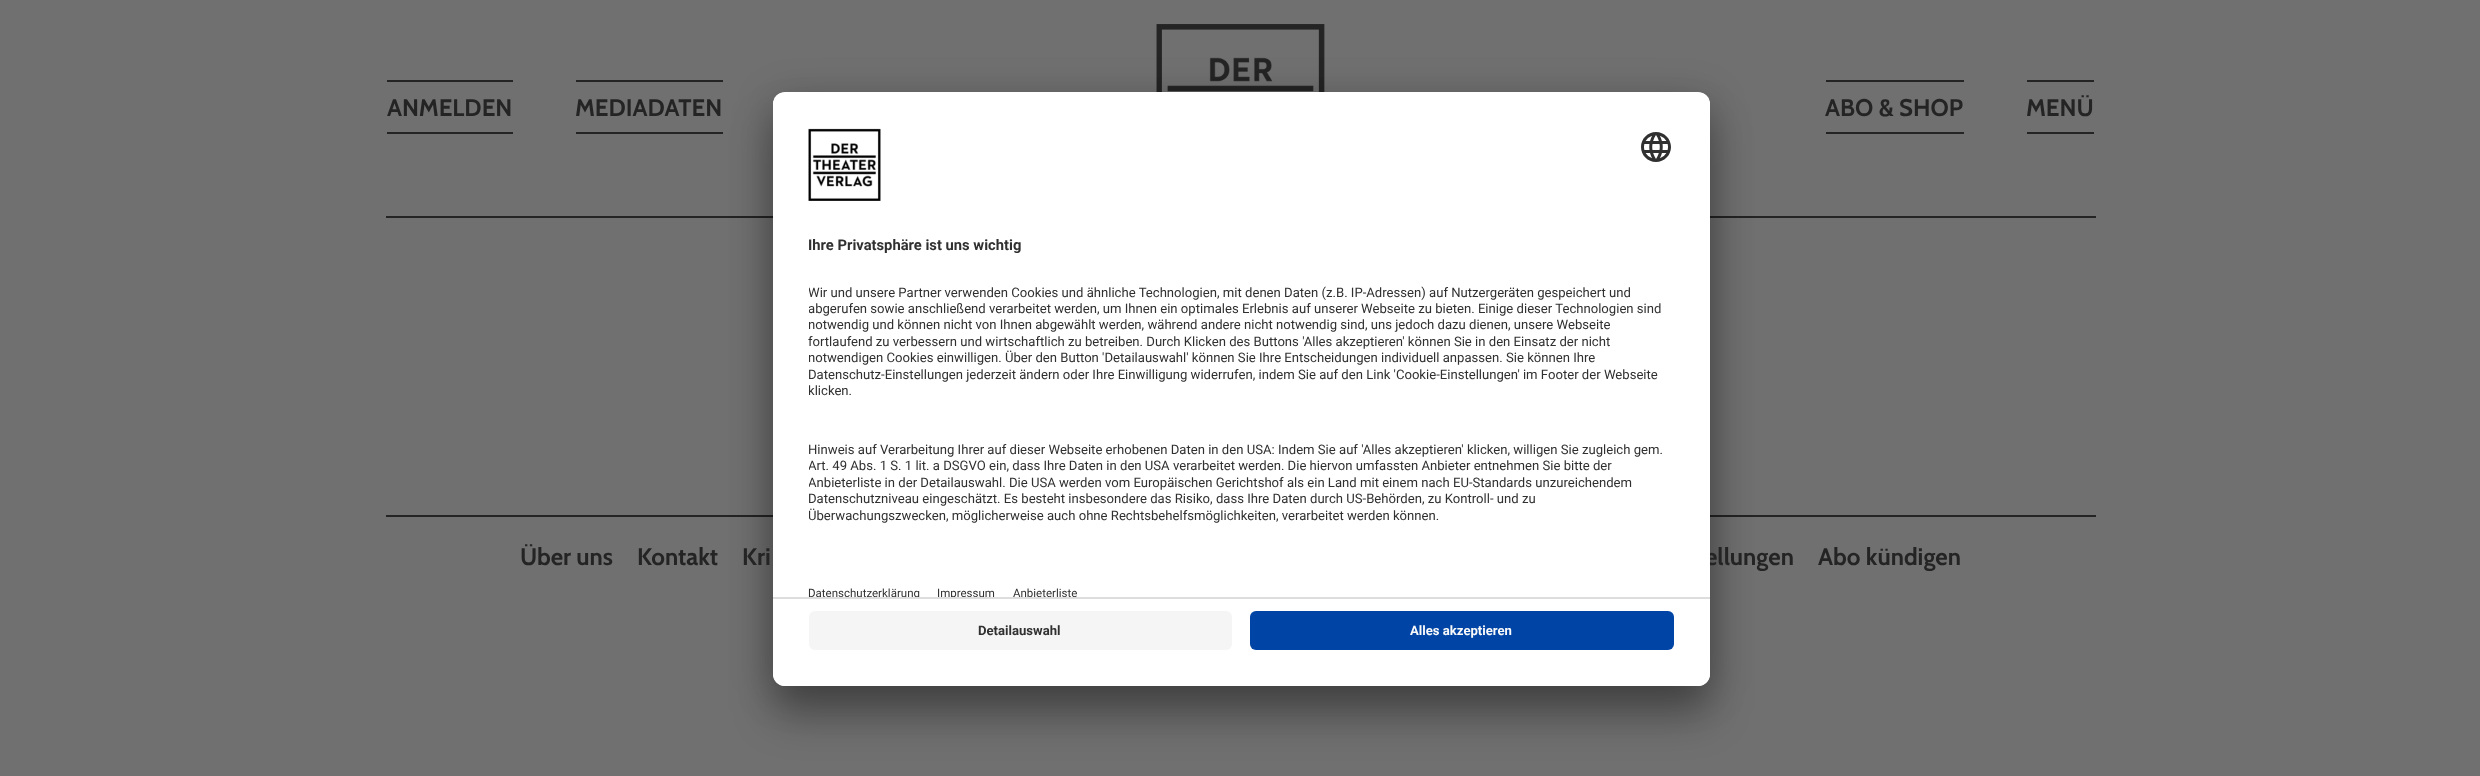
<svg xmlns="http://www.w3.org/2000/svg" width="2480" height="776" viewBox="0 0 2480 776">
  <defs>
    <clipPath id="clip1"><rect x="773" y="92" width="937" height="594" rx="12"/></clipPath>
    <clipPath id="clip2"><path d="M785 92H1698C1704.5 92 1710 97.5 1710 104V597H773V104C773 97.5 778.5 92 785 92Z"/></clipPath>
    <clipPath id="clip3"><path d="M809 266h865v277H809z"/></clipPath>
  </defs>
  <rect width="100%" height="100%" fill="#707070"/>
  <path d="M386 216h1710v2H386z" fill="#242424"/>
  <image x="1156" y="24" width="169" height="68" href="img/1.png"/>
  <path d="M387 80h126v2H387z" fill="#242424"/>
  <path d="M387 132h126v2H387z" fill="#242424"/>
  <path d="M576 80h147v2H576z" fill="#242424"/>
  <path d="M576 132h147v2H576z" fill="#242424"/>
  <path d="M1826 80h138v2H1826z" fill="#242424"/>
  <path d="M1826 132h138v2H1826z" fill="#242424"/>
  <path d="M2027 80h67v2H2027z" fill="#242424"/>
  <path d="M2027 132h67v2H2027z" fill="#242424"/>
  <path d="M386 515h1710v2H386z" fill="#242424"/>
  <rect x="773" y="122" width="937" height="594" rx="12" fill="#0000004d" filter="blur(21px)"/>
  <rect x="773" y="99" width="937" height="594" rx="12" fill="#00000038" filter="blur(19.5px)"/>
  <g font-family="Cabin" font-size="24" font-weight="bold" fill="#242424">
    <text x="387" y="116">ANMELDEN</text>
    <text x="575" y="116">MEDIADATEN</text>
    <text x="1825" y="116">ABO &amp; SHOP</text>
    <text x="2026" y="116">MENÜ</text>
    <text x="520" y="565">Über uns</text>
    <text x="637" y="565">Kontakt</text>
    <text x="742" y="565">Kri</text>
    <text x="1705" y="565">ellungen</text>
  </g>
  <rect x="773" y="92" width="937" height="594" rx="12" fill="#fff"/>
  <g clip-path="url(#clip1)">
    <g clip-path="url(#clip2)">
      <path d="M773 93h937v504H773z" fill="#fff"/>
    </g>
  </g>
  <image x="1641" y="132" width="30" height="30" href="img/3.png"/>
  <g clip-path="url(#clip2)">
    <g font-family="Roboto" font-size="11.5" fill="#303030">
      <text x="937" y="597">Impressum</text>
      <text x="808" y="597">Datenschutzerklärung</text>
    </g>
  </g>
  <image x="808" y="128" width="73" height="73" href="img/2.png"/>
  <g clip-path="url(#clip3)">
    <g font-family="Roboto" font-size="13.12" fill="#303030">
      <text x="808" y="520">Überwachungszwecken, möglicherweise auch ohne Rechtsbehelfsmöglichkeiten, verarbeitet werden können.</text>
      <text x="808" y="503">Datenschutzniveau eingeschätzt. Es besteht insbesondere das Risiko, dass Ihre Daten durch US-Behörden, zu Kontroll- und zu</text>
      <text x="808" y="487">Anbieterliste in der Detailauswahl. Die USA werden vom Europäischen Gerichtshof als ein Land mit einem nach EU-Standards unzureichendem</text>
      <text x="808" y="470">Art. 49 Abs. 1 S. 1 lit. a DSGVO ein, dass Ihre Daten in den USA verarbeitet werden. Die hiervon umfassten Anbieter entnehmen Sie bitte der</text>
      <text x="808" y="454">Hinweis auf Verarbeitung Ihrer auf dieser Webseite erhobenen Daten in den USA: Indem Sie auf 'Alles akzeptieren' klicken, willigen Sie zugleich gem.</text>
      <text x="808" y="395">klicken.</text>
      <text x="808" y="379">Datenschutz-Einstellungen jederzeit ändern oder Ihre Einwilligung widerrufen, indem Sie auf den Link 'Cookie-Einstellungen' im Footer der Webseite</text>
      <text x="808" y="362">notwendigen Cookies einwilligen. Über den Button 'Detailauswahl' können Sie Ihre Entscheidungen individuell anpassen. Sie können Ihre</text>
    </g>
  </g>
  <text x="808" y="346" font-family="Roboto" font-size="13.12" fill="#303030">fortlaufend zu verbessern und wirtschaftlich zu betreiben. Durch Klicken des Buttons 'Alles akzeptieren' können Sie in den Einsatz der nicht</text>
  <g clip-path="url(#clip3)">
    <g font-family="Roboto" font-size="13.12" fill="#303030">
      <text x="808" y="329">notwendig und können nicht von Ihnen abgewählt werden, während andere nicht notwendig sind, uns jedoch dazu dienen, unsere Webseite</text>
      <text x="808" y="313">abgerufen sowie anschließend verarbeitet werden, um Ihnen ein optimales Erlebnis auf unserer Webseite zu bieten. Einige dieser Technologien sind</text>
      <text x="808" y="297">Wir und unsere Partner verwenden Cookies und ähnliche Technologien, mit denen Daten (z.B. IP-Adressen) auf Nutzergeräten gespeichert und</text>
    </g>
  </g>
  <g clip-path="url(#clip2)">
    <text x="1013" y="597" font-family="Roboto" font-size="11.5" fill="#303030">Anbieterliste</text>
  </g>
  <text x="808" y="250" font-family="Roboto" font-size="14.75" font-weight="bold" fill="#303030">Ihre Privatsphäre ist uns wichtig</text>
  <path d="M773 597H1710V674C1710 680.5 1704.5 686 1698 686H785C778.5 686 773 680.5 773 674Z" fill="#fff"/>
  <rect x="1250" y="611" width="424" height="39" rx="6" fill="#0045a5"/>
  <text x="1410" y="635" font-family="Roboto" font-size="13.12" font-weight="bold" fill="#fafafa">Alles akzeptieren</text>
  <rect x="809" y="611" width="423" height="39" rx="6" fill="#f5f5f5"/>
  <text x="978" y="635" font-family="Roboto" font-size="13.12" font-weight="bold" fill="#303030">Detailauswahl</text>
  <path d="M773 597h937v2H773z" fill="#ddd"/>
  <text x="1818" y="565" font-family="Cabin" font-size="24" font-weight="bold" fill="#242424">Abo kündigen</text>
</svg>
